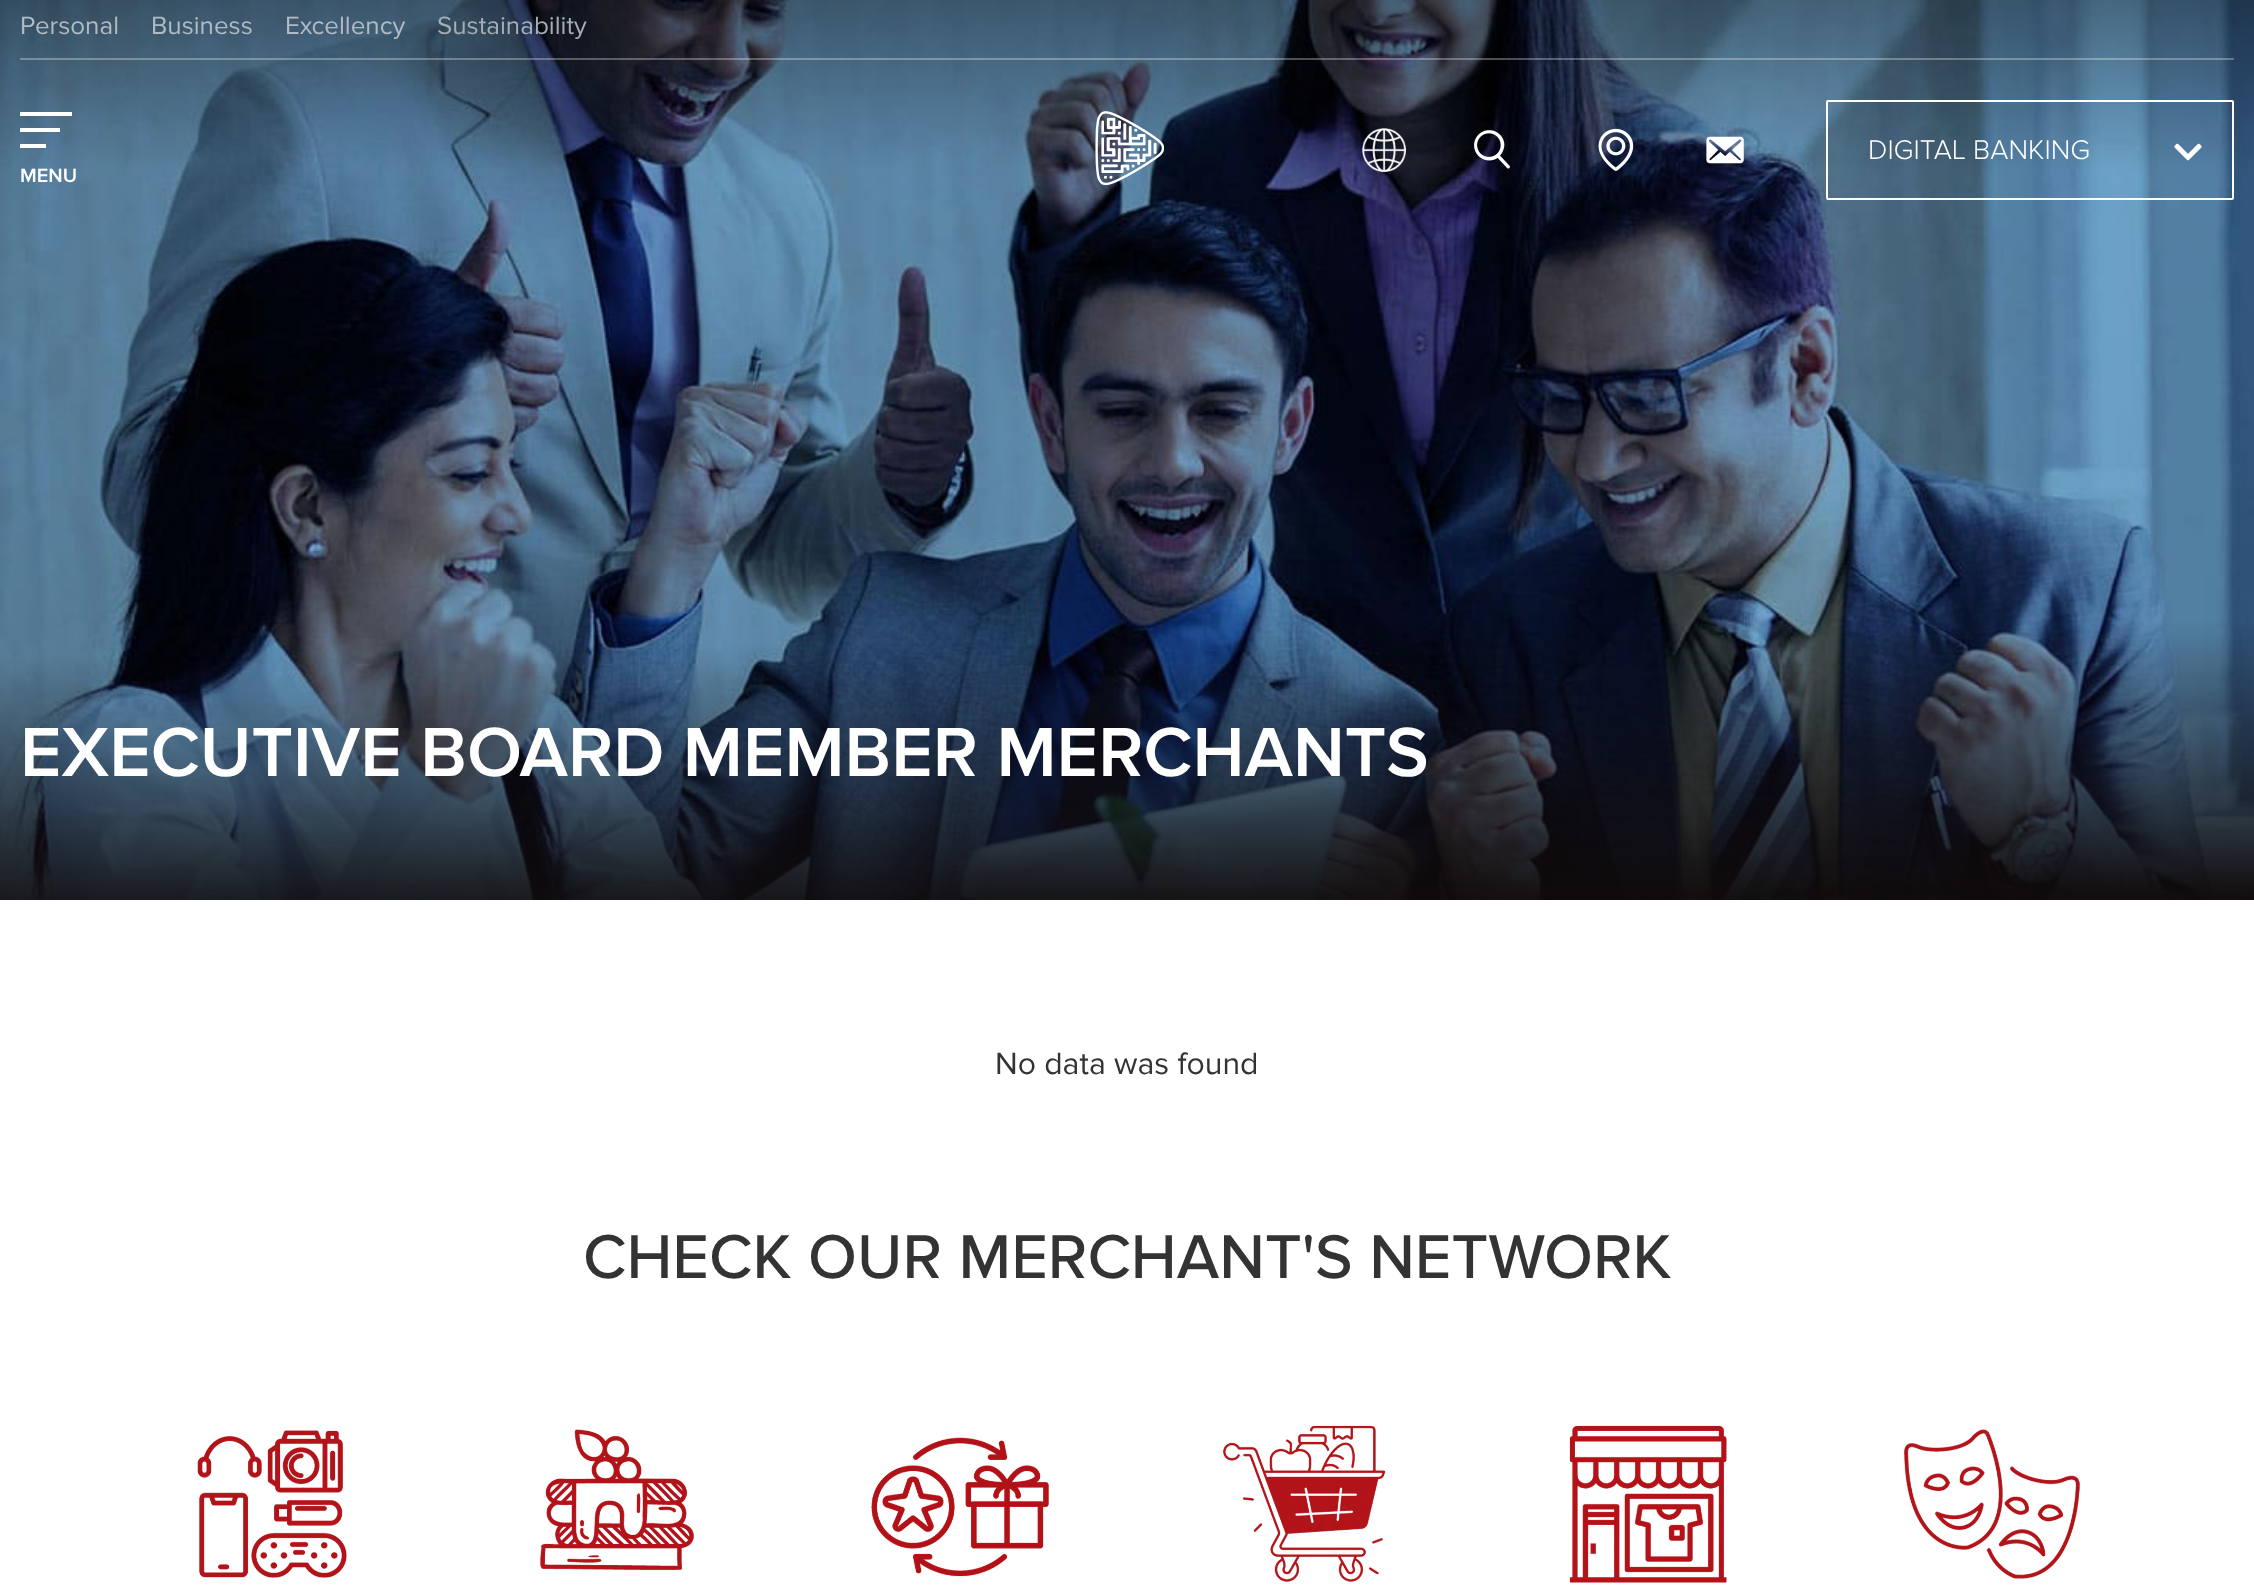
<svg xmlns="http://www.w3.org/2000/svg" width="2254" height="1593" viewBox="0 0 2254 1593">
  <rect width="100%" height="100%" fill="#fff"/>
  <image x="0" y="0" width="2254" height="900" href="img/7.png"/>
  <path d="M20 58h2214v2H20z" fill="#ffffff4d"/>
  <image x="1095" y="111" width="69" height="75" href="img/1.png"/>
  <image x="1362" y="128" width="44" height="44" href="img/2.png"/>
  <image x="1474" y="130" width="36" height="39" href="img/3.png"/>
  <image x="1598" y="128" width="36" height="43" href="img/4.png"/>
  <image x="1706" y="136" width="38" height="28" href="img/5.png"/>
  <rect x="1827" y="101" width="406" height="98" rx="1" fill="none" stroke="#fff" stroke-width="2"/>
  <image x="2174" y="143" width="28" height="18" href="img/6.png"/>
  <path d="M20 112h52v4H20z" fill="#fff"/>
  <path d="M20 128h40v4H20z" fill="#fff"/>
  <path d="M20 144h26v4H20z" fill="#fff"/>
  <image x="197" y="1430" width="150" height="148" href="img/8.png"/>
  <image x="540" y="1429" width="154" height="141" href="img/9.png"/>
  <image x="871" y="1437" width="178" height="140" href="img/10.png"/>
  <image x="1223" y="1425" width="163" height="157" href="img/11.png"/>
  <image x="1569" y="1425" width="158" height="158" href="img/12.png"/>
  <image x="1904" y="1429" width="176" height="150" href="img/13.png"/>
  <g font-family="Proxima Nova" font-size="26" fill="#b0bbc3">
    <text x="20" y="34">Personal</text>
    <text x="151" y="34">Business</text>
    <text x="285" y="34">Excellency</text>
  </g>
  <text x="437" y="34" font-family="Proxima Nova" font-size="26" fill="#a7adb4">Sustainability</text>
  <text x="1868" y="159" font-family="Proxima Nova" font-size="28" font-weight="300" fill="#fff">DIGITAL BANKING</text>
  <text x="20" y="182" font-family="Proxima Nova" font-size="20" font-weight="600" fill="#fff">MENU</text>
  <text x="20" y="776" font-family="Proxima Nova" font-size="72" font-weight="600" fill="#fff">EXECUTIVE BOARD MEMBER MERCHANTS</text>
  <text x="995" y="1074" font-family="Proxima Nova" font-size="32" fill="#333">No data was found</text>
  <text x="583" y="1278" font-family="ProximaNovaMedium" font-size="64" font-weight="500" fill="#333">CHECK OUR MERCHANT'S NETWORK</text>
</svg>
